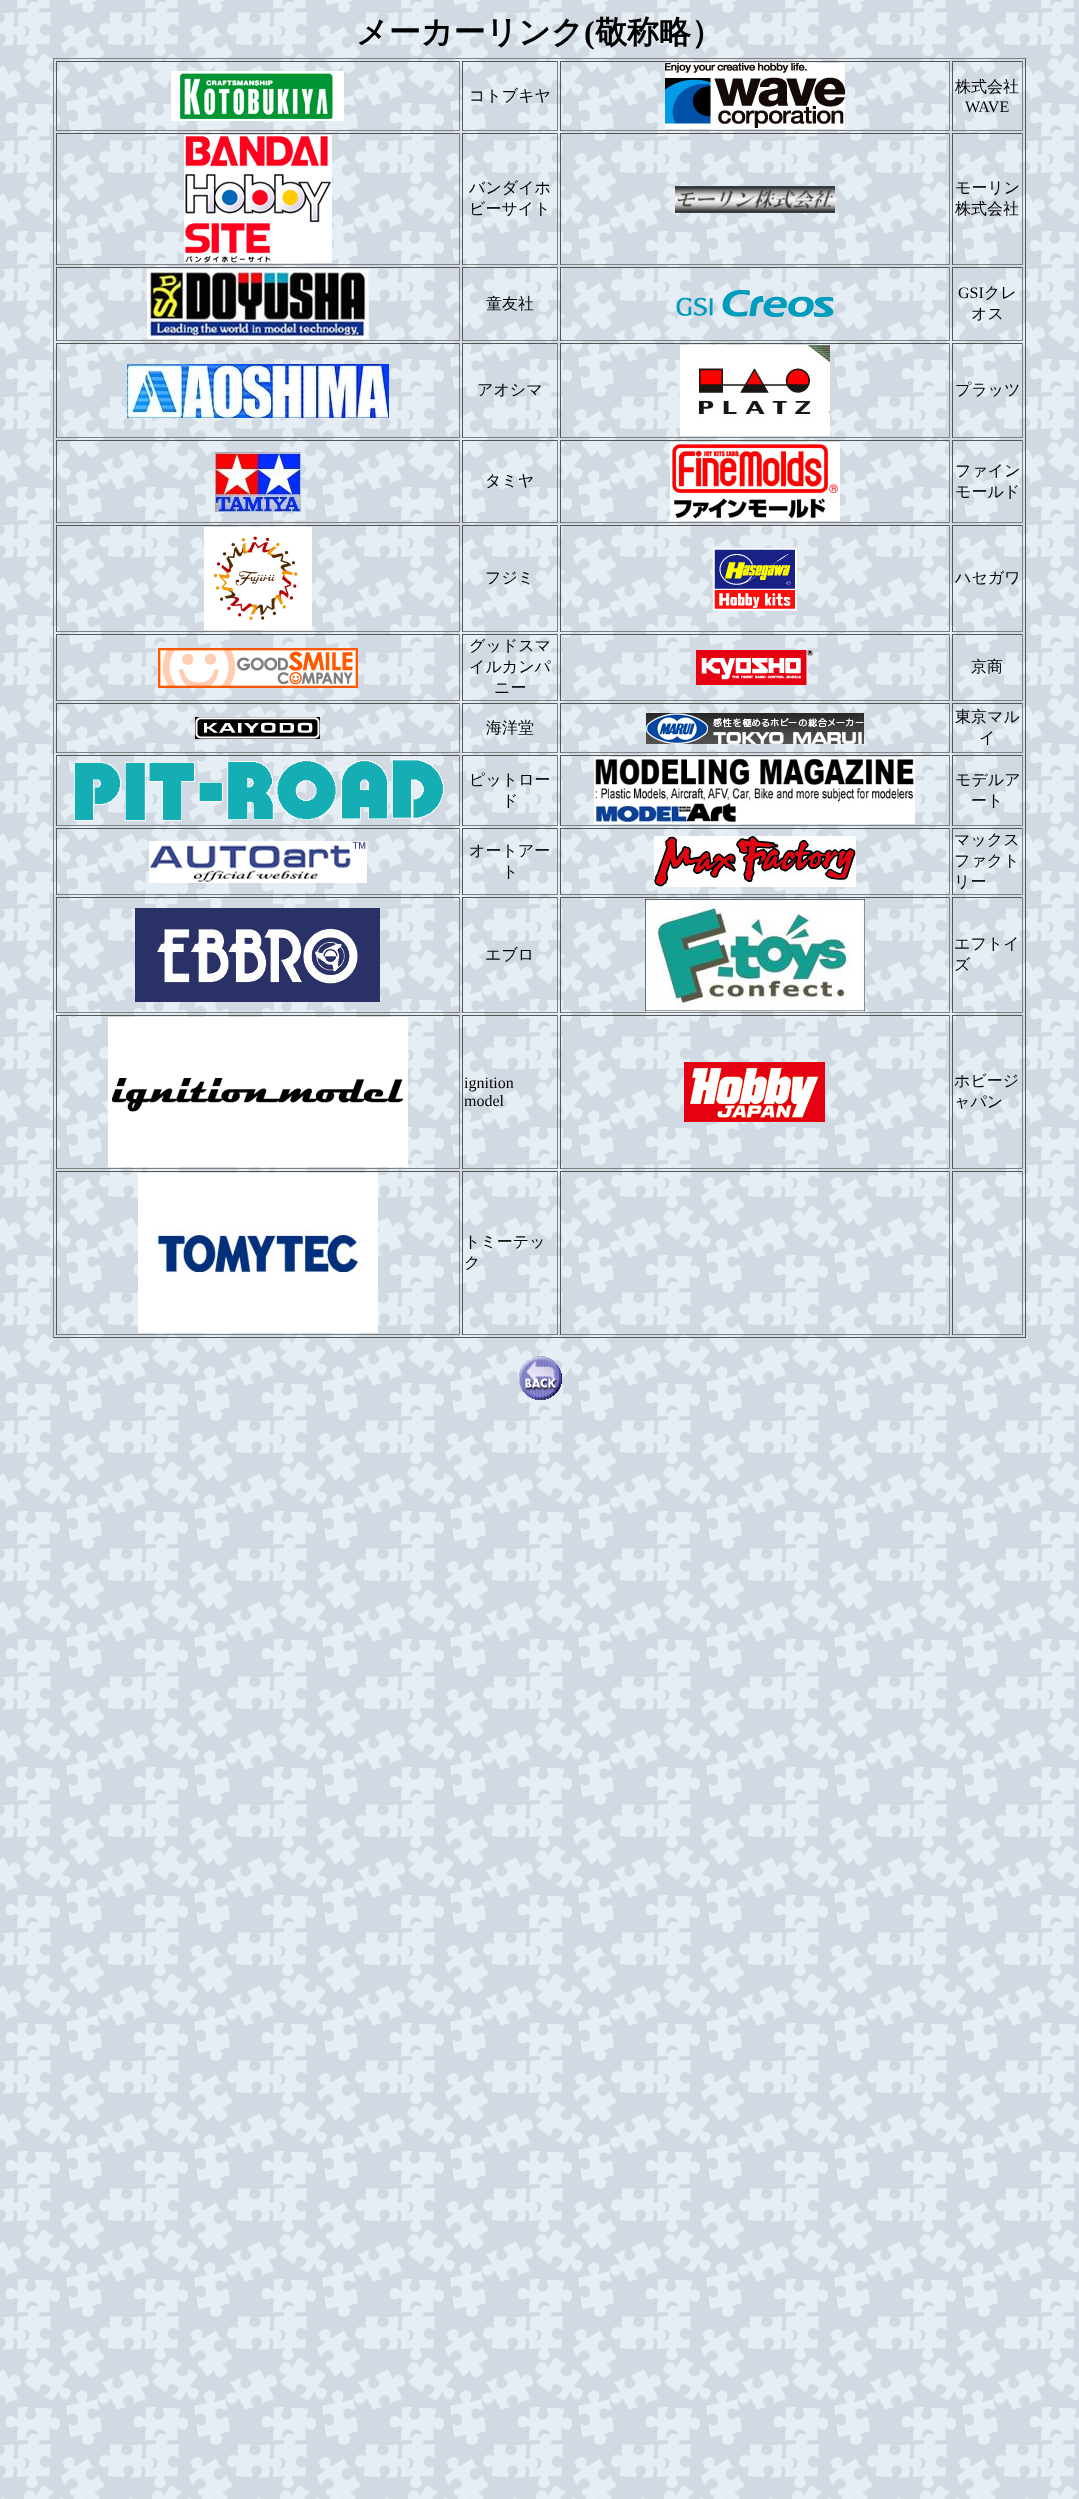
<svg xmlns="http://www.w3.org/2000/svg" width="1079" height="2499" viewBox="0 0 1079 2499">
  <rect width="100%" height="100%" fill="#fff"/>
  <image x="0" y="0" width="1079" height="2499" href="img/1.png"/>
  <path d="M53 58h973v1H53z" fill="#808080"/>
  <path d="M1025 58h1v1280H1025z" fill="#555"/>
  <path d="M53 1337h973v1H53z" fill="#555"/>
  <path d="M53 58h1v1280H53z" fill="#808080"/>
  <path d="M56 61h404v1H56z" fill="#555"/>
  <path d="M459 61h1v70H459z" fill="#808080"/>
  <path d="M56 130h404v1H56z" fill="#808080"/>
  <path d="M56 61h1v70H56z" fill="#555"/>
  <image x="171" y="71" width="173" height="50" href="img/2.png"/>
  <path d="M462 61h96v1H462z" fill="#555"/>
  <path d="M557 61h1v70H557z" fill="#808080"/>
  <path d="M462 130h96v1H462z" fill="#808080"/>
  <path d="M462 61h1v70H462z" fill="#555"/>
  <path d="M560 61h390v1H560z" fill="#555"/>
  <path d="M949 61h1v70H949z" fill="#808080"/>
  <path d="M560 130h390v1H560z" fill="#808080"/>
  <path d="M560 61h1v70H560z" fill="#555"/>
  <image x="665" y="63" width="180" height="66" href="img/3.png"/>
  <path d="M952 61h71v1H952z" fill="#555"/>
  <path d="M1022 61h1v70H1022z" fill="#808080"/>
  <path d="M952 130h71v1H952z" fill="#808080"/>
  <path d="M952 61h1v70H952z" fill="#555"/>
  <path d="M56 133h404v1H56z" fill="#555"/>
  <path d="M459 133h1v132H459z" fill="#808080"/>
  <path d="M56 264h404v1H56z" fill="#808080"/>
  <path d="M56 133h1v132H56z" fill="#555"/>
  <image x="184" y="135" width="148" height="128" href="img/4.png"/>
  <path d="M462 133h96v1H462z" fill="#555"/>
  <path d="M557 133h1v132H557z" fill="#808080"/>
  <path d="M462 264h96v1H462z" fill="#808080"/>
  <path d="M462 133h1v132H462z" fill="#555"/>
  <path d="M560 133h390v1H560z" fill="#555"/>
  <path d="M949 133h1v132H949z" fill="#808080"/>
  <path d="M560 264h390v1H560z" fill="#808080"/>
  <path d="M560 133h1v132H560z" fill="#555"/>
  <image x="675" y="186" width="160" height="27" href="img/5.png"/>
  <path d="M952 133h71v1H952z" fill="#555"/>
  <path d="M1022 133h1v132H1022z" fill="#808080"/>
  <path d="M952 264h71v1H952z" fill="#808080"/>
  <path d="M952 133h1v132H952z" fill="#555"/>
  <path d="M56 267h404v1H56z" fill="#555"/>
  <path d="M459 267h1v74H459z" fill="#808080"/>
  <path d="M56 340h404v1H56z" fill="#808080"/>
  <path d="M56 267h1v74H56z" fill="#555"/>
  <image x="147" y="269" width="222" height="70" href="img/6.png"/>
  <path d="M462 267h96v1H462z" fill="#555"/>
  <path d="M557 267h1v74H557z" fill="#808080"/>
  <path d="M462 340h96v1H462z" fill="#808080"/>
  <path d="M462 267h1v74H462z" fill="#555"/>
  <path d="M560 267h390v1H560z" fill="#555"/>
  <path d="M949 267h1v74H949z" fill="#808080"/>
  <path d="M560 340h390v1H560z" fill="#808080"/>
  <path d="M560 267h1v74H560z" fill="#555"/>
  <image x="676" y="290" width="158" height="27" href="img/7.png"/>
  <path d="M952 267h71v1H952z" fill="#555"/>
  <path d="M1022 267h1v74H1022z" fill="#808080"/>
  <path d="M952 340h71v1H952z" fill="#808080"/>
  <path d="M952 267h1v74H952z" fill="#555"/>
  <path d="M56 343h404v1H56z" fill="#555"/>
  <path d="M459 343h1v95H459z" fill="#808080"/>
  <path d="M56 437h404v1H56z" fill="#808080"/>
  <path d="M56 343h1v95H56z" fill="#555"/>
  <image x="127" y="364" width="262" height="54" href="img/8.png"/>
  <path d="M462 343h96v1H462z" fill="#555"/>
  <path d="M557 343h1v95H557z" fill="#808080"/>
  <path d="M462 437h96v1H462z" fill="#808080"/>
  <path d="M462 343h1v95H462z" fill="#555"/>
  <path d="M560 343h390v1H560z" fill="#555"/>
  <path d="M949 343h1v95H949z" fill="#808080"/>
  <path d="M560 437h390v1H560z" fill="#808080"/>
  <path d="M560 343h1v95H560z" fill="#555"/>
  <image x="680" y="345" width="150" height="91" href="img/9.png"/>
  <path d="M952 343h71v1H952z" fill="#555"/>
  <path d="M1022 343h1v95H1022z" fill="#808080"/>
  <path d="M952 437h71v1H952z" fill="#808080"/>
  <path d="M952 343h1v95H952z" fill="#555"/>
  <path d="M56 440h404v1H56z" fill="#555"/>
  <path d="M459 440h1v83H459z" fill="#808080"/>
  <path d="M56 522h404v1H56z" fill="#808080"/>
  <path d="M56 440h1v83H56z" fill="#555"/>
  <image x="215" y="452" width="86" height="60" href="img/10.png"/>
  <path d="M462 440h96v1H462z" fill="#555"/>
  <path d="M557 440h1v83H557z" fill="#808080"/>
  <path d="M462 522h96v1H462z" fill="#808080"/>
  <path d="M462 440h1v83H462z" fill="#555"/>
  <path d="M560 440h390v1H560z" fill="#555"/>
  <path d="M949 440h1v83H949z" fill="#808080"/>
  <path d="M560 522h390v1H560z" fill="#808080"/>
  <path d="M560 440h1v83H560z" fill="#555"/>
  <image x="670" y="442" width="170" height="79" href="img/11.png"/>
  <path d="M952 440h71v1H952z" fill="#555"/>
  <path d="M1022 440h1v83H1022z" fill="#808080"/>
  <path d="M952 522h71v1H952z" fill="#808080"/>
  <path d="M952 440h1v83H952z" fill="#555"/>
  <path d="M56 525h404v1H56z" fill="#555"/>
  <path d="M459 525h1v107H459z" fill="#808080"/>
  <path d="M56 631h404v1H56z" fill="#808080"/>
  <path d="M56 525h1v107H56z" fill="#555"/>
  <image x="204" y="527" width="108" height="103" href="img/12.png"/>
  <path d="M462 525h96v1H462z" fill="#555"/>
  <path d="M557 525h1v107H557z" fill="#808080"/>
  <path d="M462 631h96v1H462z" fill="#808080"/>
  <path d="M462 525h1v107H462z" fill="#555"/>
  <path d="M560 525h390v1H560z" fill="#555"/>
  <path d="M949 525h1v107H949z" fill="#808080"/>
  <path d="M560 631h390v1H560z" fill="#808080"/>
  <path d="M560 525h1v107H560z" fill="#555"/>
  <image x="712" y="547" width="85" height="64" href="img/13.png"/>
  <path d="M952 525h71v1H952z" fill="#555"/>
  <path d="M1022 525h1v107H1022z" fill="#808080"/>
  <path d="M952 631h71v1H952z" fill="#808080"/>
  <path d="M952 525h1v107H952z" fill="#555"/>
  <path d="M56 634h404v1H56z" fill="#555"/>
  <path d="M459 634h1v67H459z" fill="#808080"/>
  <path d="M56 700h404v1H56z" fill="#808080"/>
  <path d="M56 634h1v67H56z" fill="#555"/>
  <image x="158" y="648" width="200" height="40" href="img/14.png"/>
  <path d="M462 634h96v1H462z" fill="#555"/>
  <path d="M557 634h1v67H557z" fill="#808080"/>
  <path d="M462 700h96v1H462z" fill="#808080"/>
  <path d="M462 634h1v67H462z" fill="#555"/>
  <path d="M560 634h390v1H560z" fill="#555"/>
  <path d="M949 634h1v67H949z" fill="#808080"/>
  <path d="M560 700h390v1H560z" fill="#808080"/>
  <path d="M560 634h1v67H560z" fill="#555"/>
  <image x="696" y="650" width="117" height="35" href="img/15.png"/>
  <path d="M952 634h71v1H952z" fill="#555"/>
  <path d="M1022 634h1v67H1022z" fill="#808080"/>
  <path d="M952 700h71v1H952z" fill="#808080"/>
  <path d="M952 634h1v67H952z" fill="#555"/>
  <path d="M56 703h404v1H56z" fill="#555"/>
  <path d="M459 703h1v50H459z" fill="#808080"/>
  <path d="M56 752h404v1H56z" fill="#808080"/>
  <path d="M56 703h1v50H56z" fill="#555"/>
  <image x="195" y="717" width="125" height="22" href="img/16.png"/>
  <path d="M462 703h96v1H462z" fill="#555"/>
  <path d="M557 703h1v50H557z" fill="#808080"/>
  <path d="M462 752h96v1H462z" fill="#808080"/>
  <path d="M462 703h1v50H462z" fill="#555"/>
  <path d="M560 703h390v1H560z" fill="#555"/>
  <path d="M949 703h1v50H949z" fill="#808080"/>
  <path d="M560 752h390v1H560z" fill="#808080"/>
  <path d="M560 703h1v50H560z" fill="#555"/>
  <image x="646" y="713" width="218" height="31" href="img/17.png"/>
  <path d="M952 703h71v1H952z" fill="#555"/>
  <path d="M1022 703h1v50H1022z" fill="#808080"/>
  <path d="M952 752h71v1H952z" fill="#808080"/>
  <path d="M952 703h1v50H952z" fill="#555"/>
  <path d="M56 755h404v1H56z" fill="#555"/>
  <path d="M459 755h1v71H459z" fill="#808080"/>
  <path d="M56 825h404v1H56z" fill="#808080"/>
  <path d="M56 755h1v71H56z" fill="#555"/>
  <image x="74" y="759" width="370" height="62" href="img/18.png"/>
  <path d="M462 755h96v1H462z" fill="#555"/>
  <path d="M557 755h1v71H557z" fill="#808080"/>
  <path d="M462 825h96v1H462z" fill="#808080"/>
  <path d="M462 755h1v71H462z" fill="#555"/>
  <path d="M560 755h390v1H560z" fill="#555"/>
  <path d="M949 755h1v71H949z" fill="#808080"/>
  <path d="M560 825h390v1H560z" fill="#808080"/>
  <path d="M560 755h1v71H560z" fill="#555"/>
  <image x="594" y="757" width="321" height="67" href="img/19.png"/>
  <path d="M952 755h71v1H952z" fill="#555"/>
  <path d="M1022 755h1v71H1022z" fill="#808080"/>
  <path d="M952 825h71v1H952z" fill="#808080"/>
  <path d="M952 755h1v71H952z" fill="#555"/>
  <path d="M56 828h404v1H56z" fill="#555"/>
  <path d="M459 828h1v67H459z" fill="#808080"/>
  <path d="M56 894h404v1H56z" fill="#808080"/>
  <path d="M56 828h1v67H56z" fill="#555"/>
  <image x="149" y="841" width="218" height="42" href="img/20.png"/>
  <path d="M462 828h96v1H462z" fill="#555"/>
  <path d="M557 828h1v67H557z" fill="#808080"/>
  <path d="M462 894h96v1H462z" fill="#808080"/>
  <path d="M462 828h1v67H462z" fill="#555"/>
  <path d="M560 828h390v1H560z" fill="#555"/>
  <path d="M949 828h1v67H949z" fill="#808080"/>
  <path d="M560 894h390v1H560z" fill="#808080"/>
  <path d="M560 828h1v67H560z" fill="#555"/>
  <image x="654" y="836" width="202" height="51" href="img/21.png"/>
  <path d="M952 828h71v1H952z" fill="#555"/>
  <path d="M1022 828h1v67H1022z" fill="#808080"/>
  <path d="M952 894h71v1H952z" fill="#808080"/>
  <path d="M952 828h1v67H952z" fill="#555"/>
  <path d="M56 897h404v1H56z" fill="#555"/>
  <path d="M459 897h1v116H459z" fill="#808080"/>
  <path d="M56 1012h404v1H56z" fill="#808080"/>
  <path d="M56 897h1v116H56z" fill="#555"/>
  <image x="135" y="908" width="245" height="94" href="img/22.png"/>
  <path d="M462 897h96v1H462z" fill="#555"/>
  <path d="M557 897h1v116H557z" fill="#808080"/>
  <path d="M462 1012h96v1H462z" fill="#808080"/>
  <path d="M462 897h1v116H462z" fill="#555"/>
  <path d="M560 897h390v1H560z" fill="#555"/>
  <path d="M949 897h1v116H949z" fill="#808080"/>
  <path d="M560 1012h390v1H560z" fill="#808080"/>
  <path d="M560 897h1v116H560z" fill="#555"/>
  <image x="645" y="899" width="220" height="112" href="img/23.png"/>
  <path d="M952 897h71v1H952z" fill="#555"/>
  <path d="M1022 897h1v116H1022z" fill="#808080"/>
  <path d="M952 1012h71v1H952z" fill="#808080"/>
  <path d="M952 897h1v116H952z" fill="#555"/>
  <path d="M56 1015h404v1H56z" fill="#555"/>
  <path d="M459 1015h1v154H459z" fill="#808080"/>
  <path d="M56 1168h404v1H56z" fill="#808080"/>
  <path d="M56 1015h1v154H56z" fill="#555"/>
  <image x="108" y="1017" width="300" height="150" href="img/24.png"/>
  <path d="M462 1015h96v1H462z" fill="#555"/>
  <path d="M557 1015h1v154H557z" fill="#808080"/>
  <path d="M462 1168h96v1H462z" fill="#808080"/>
  <path d="M462 1015h1v154H462z" fill="#555"/>
  <path d="M560 1015h390v1H560z" fill="#555"/>
  <path d="M949 1015h1v154H949z" fill="#808080"/>
  <path d="M560 1168h390v1H560z" fill="#808080"/>
  <path d="M560 1015h1v154H560z" fill="#555"/>
  <image x="684" y="1062" width="141" height="60" href="img/25.png"/>
  <path d="M952 1015h71v1H952z" fill="#555"/>
  <path d="M1022 1015h1v154H1022z" fill="#808080"/>
  <path d="M952 1168h71v1H952z" fill="#808080"/>
  <path d="M952 1015h1v154H952z" fill="#555"/>
  <path d="M56 1171h404v1H56z" fill="#555"/>
  <path d="M459 1171h1v164H459z" fill="#808080"/>
  <path d="M56 1334h404v1H56z" fill="#808080"/>
  <path d="M56 1171h1v164H56z" fill="#555"/>
  <image x="138" y="1173" width="240" height="160" href="img/26.png"/>
  <path d="M462 1171h96v1H462z" fill="#555"/>
  <path d="M557 1171h1v164H557z" fill="#808080"/>
  <path d="M462 1334h96v1H462z" fill="#808080"/>
  <path d="M462 1171h1v164H462z" fill="#555"/>
  <path d="M560 1171h390v1H560z" fill="#555"/>
  <path d="M949 1171h1v164H949z" fill="#808080"/>
  <path d="M560 1334h390v1H560z" fill="#808080"/>
  <path d="M560 1171h1v164H560z" fill="#555"/>
  <path d="M952 1171h71v1H952z" fill="#555"/>
  <path d="M1022 1171h1v164H1022z" fill="#808080"/>
  <path d="M952 1334h71v1H952z" fill="#808080"/>
  <path d="M952 1171h1v164H952z" fill="#555"/>
  <image x="519" y="1356" width="43" height="44" href="img/27.png"/>
  <text x="356" y="43" font-family="WenQuanYi Zen Hei" font-size="32" font-weight="bold" fill="#000">メーカーリンク</text>
  <text x="584" y="43" font-family="Liberation Serif" font-size="32" font-weight="bold" fill="#000">(</text>
  <text x="595" y="43" font-family="WenQuanYi Zen Hei" font-size="32" font-weight="bold" fill="#000">敬称略）</text>
  <g font-family="WenQuanYi Zen Hei" font-size="16" font-weight="500" fill="#000">
    <text x="469" y="101">コトブキヤ</text>
    <text x="955" y="92">株式会社</text>
  </g>
  <text x="965" y="112" font-family="Liberation Serif" font-size="16" fill="#000">WAVE</text>
  <g font-family="WenQuanYi Zen Hei" font-size="16" font-weight="500" fill="#000">
    <text x="469" y="193">バンダイホ</text>
    <text x="469" y="214">ビーサイト</text>
    <text x="955" y="193">モーリン</text>
    <text x="955" y="214">株式会社</text>
    <text x="486" y="309">童友社</text>
  </g>
  <text x="958" y="298" font-family="Liberation Serif" font-size="16" fill="#000">GSI</text>
  <g font-family="WenQuanYi Zen Hei" font-size="16" font-weight="500" fill="#000">
    <text x="984" y="298">クレ</text>
    <text x="971" y="319">オス</text>
    <text x="477" y="395">アオシマ</text>
    <text x="955" y="395">プラッツ</text>
    <text x="485" y="486">タミヤ</text>
    <text x="955" y="476">ファイン</text>
    <text x="955" y="497">モールド</text>
    <text x="485" y="583">フジミ</text>
    <text x="955" y="583">ハセガワ</text>
    <text x="469" y="651">グッドスマ</text>
    <text x="469" y="672">イルカンパ</text>
    <text x="494" y="693">ニー</text>
    <text x="971" y="672">京商</text>
    <text x="486" y="733">海洋堂</text>
    <text x="955" y="722">東京マル</text>
    <text x="979" y="743">イ</text>
    <text x="469" y="785">ピットロー</text>
    <text x="502" y="806">ド</text>
    <text x="955" y="785">モデルア</text>
    <text x="971" y="806">ート</text>
    <text x="469" y="856">オートアー</text>
    <text x="502" y="877">ト</text>
    <text x="954" y="845">マックス</text>
    <text x="954" y="866">ファクト</text>
    <text x="954" y="887">リー</text>
    <text x="485" y="960">エブロ</text>
    <text x="954" y="949">エフトイ</text>
    <text x="954" y="970">ズ</text>
  </g>
  <g font-family="Liberation Serif" font-size="16" fill="#000">
    <text x="464" y="1088">ignition</text>
    <text x="464" y="1106">model</text>
  </g>
  <g font-family="WenQuanYi Zen Hei" font-size="16" font-weight="500" fill="#000">
    <text x="954" y="1086">ホビージ</text>
    <text x="954" y="1107">ャパン</text>
    <text x="464" y="1247">トミーテッ</text>
    <text x="464" y="1268">ク</text>
  </g>
</svg>
